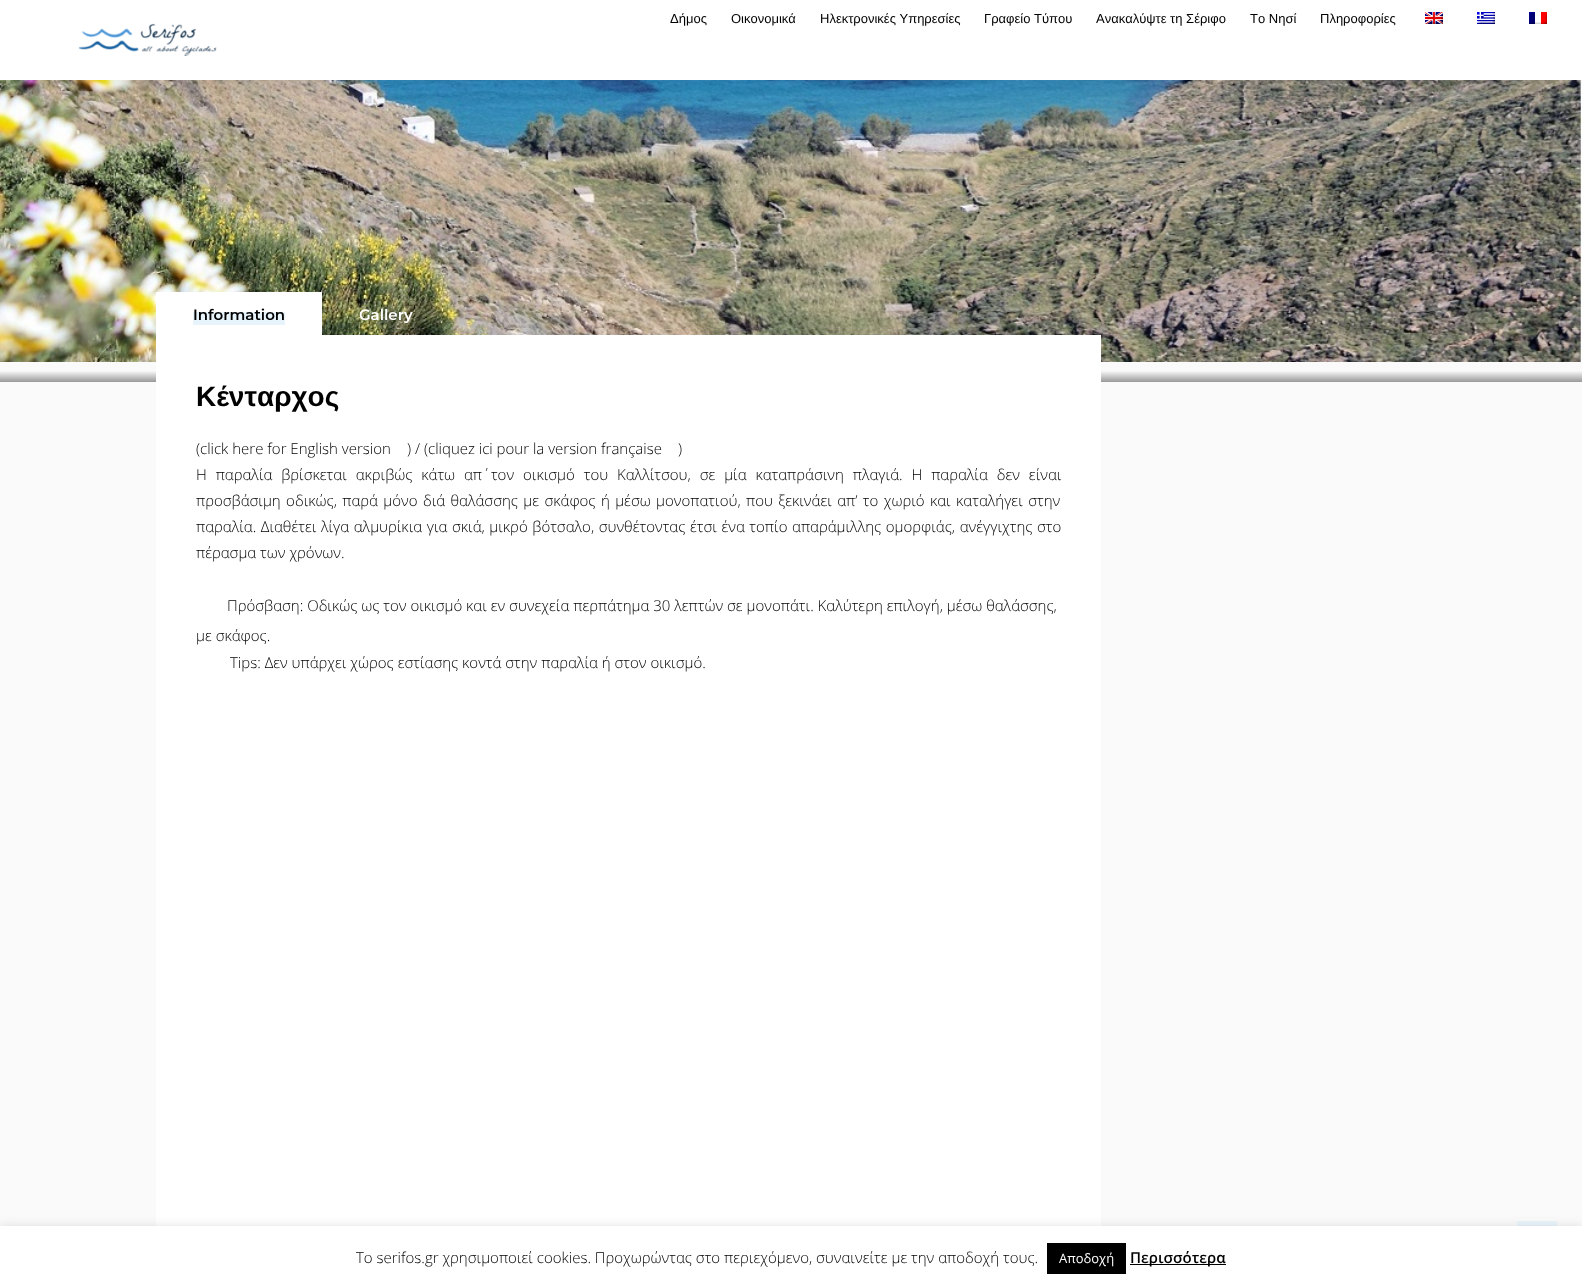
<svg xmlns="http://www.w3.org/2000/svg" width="1582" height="1286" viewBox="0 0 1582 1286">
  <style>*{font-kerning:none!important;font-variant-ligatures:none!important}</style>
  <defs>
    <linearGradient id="g1" gradientUnits="userSpaceOnUse" x1="791" y1="382" x2="791" y2="362"><stop offset="0" stop-color="#9a9a9a"/><stop offset="0.01" stop-color="#9a9a9a"/><stop offset="0.56" stop-color="#fafafa"/><stop offset="0.74" stop-color="#fafafa"/></linearGradient>
  </defs>
  <rect width="100%" height="100%" fill="#fff"/>
  <image x="0" y="80" width="1582" height="282" href="img/5.png"/>
  <path d="M0 2h1582v80H0z" fill="#00000012" filter="blur(4px)"/>
  <path d="M0 0h1582v80H0z" fill="#fff"/>
  <image x="1425" y="12" width="18" height="12" href="img/1.png"/>
  <image x="1477" y="12" width="18" height="12" href="img/2.png"/>
  <image x="1529" y="12" width="18" height="12" href="img/3.png"/>
  <image x="78" y="23" width="139" height="33" href="img/4.png"/>
  <path d="M0 382h1582v844H0z" fill="#fafafa"/>
  <path d="M156 292h166v43H156z" fill="#fff"/>
  <path d="M193 312h92v13H193z" fill="#e8f4fc"/>
  <path d="M0 362h1582v20H0z" fill="url(#g1)"/>
  <path d="M156 335h945v891H156z" fill="#fff"/>
  <path d="M1517 1221h40v5H1517z" fill="#e8f4fc"/>
  <path d="M0 1225h1582v60H0z" fill="#acabab4d" filter="blur(5px)"/>
  <path d="M0 1226h1582v60H0z" fill="#fff"/>
  <path d="M1047 1243h79v31H1047z" fill="#000"/>
  <path d="M1130 1264h96v1H1130z" fill="#000"/>
  <g font-family="Liberation Sans" font-size="13" fill="#000">
    <text x="670" y="23">Δήμος</text>
    <text x="731" y="23">Οικονομικά</text>
    <text x="820" y="23">Ηλεκτρονικές Υπηρεσίες</text>
    <text x="984" y="23">Γραφείο Τύπου</text>
    <text x="1096" y="23">Ανακαλύψτε τη Σέριφο</text>
    <text x="1250" y="23">Το Νησί</text>
    <text x="1320" y="23">Πληροφορίες</text>
  </g>
  <text x="193" y="320" font-family="Montserrat" font-size="15" font-weight="600" fill="#000">Information</text>
  <text x="359" y="320" font-family="Montserrat" font-size="15" font-weight="600" fill="#fff">Gallery</text>
  <text x="196" y="406" font-family="Liberation Sans" font-size="28" font-weight="bold" fill="#000">Κένταρχος</text>
  <g font-family="Open Sans" font-size="15" font-weight="300" fill="#000">
    <text x="196" y="454">(click here for English version</text>
    <text x="407" y="454">) / (cliquez ici pour la version française</text>
    <text x="678" y="454">)</text>
    <text x="196" y="480" word-spacing="5">Η παραλία βρίσκεται ακριβώς κάτω απ΄ τον οικισμό του Καλλίτσου, σε μία καταπράσινη πλαγιά. Η παραλία δεν είναι</text>
    <text x="196" y="506" word-spacing="1.5">προσβάσιμη οδικώς, παρά μόνο διά θαλάσσης με σκάφος ή μέσω μονοπατιού, που ξεκινάει απ’ το χωριό και καταλήγει στην</text>
    <text x="196" y="532" word-spacing="0.7">παραλία. Διαθέτει λίγα αλμυρίκια για σκιά, μικρό βότσαλο, συνθέτοντας έτσι ένα τοπίο απαράμιλλης ομορφιάς, ανέγγιχτης στο</text>
    <text x="196" y="558">πέρασμα των χρόνων.</text>
    <text x="227" y="611">Πρόσβαση: Οδικώς ως τον οικισμό και εν συνεχεία περπάτημα 30 λεπτών σε μονοπάτι. Καλύτερη επιλογή, μέσω θαλάσσης,</text>
    <text x="196" y="641">με σκάφος.</text>
    <text x="230" y="668">Tips: Δεν υπάρχει χώρος εστίασης κοντά στην παραλία ή στον οικισμό.</text>
    <text x="356" y="1263">Το serifos.gr χρησιμοποιεί cookies. Προχωρώντας στο περιεχόμενο, συναινείτε με την αποδοχή τους.</text>
  </g>
  <text x="1059" y="1263" font-family="Open Sans" font-size="13" fill="#fff">Αποδοχή</text>
  <text x="1130" y="1263" font-family="Open Sans" font-size="15" font-weight="600" fill="#000">Περισσότερα</text>
</svg>
